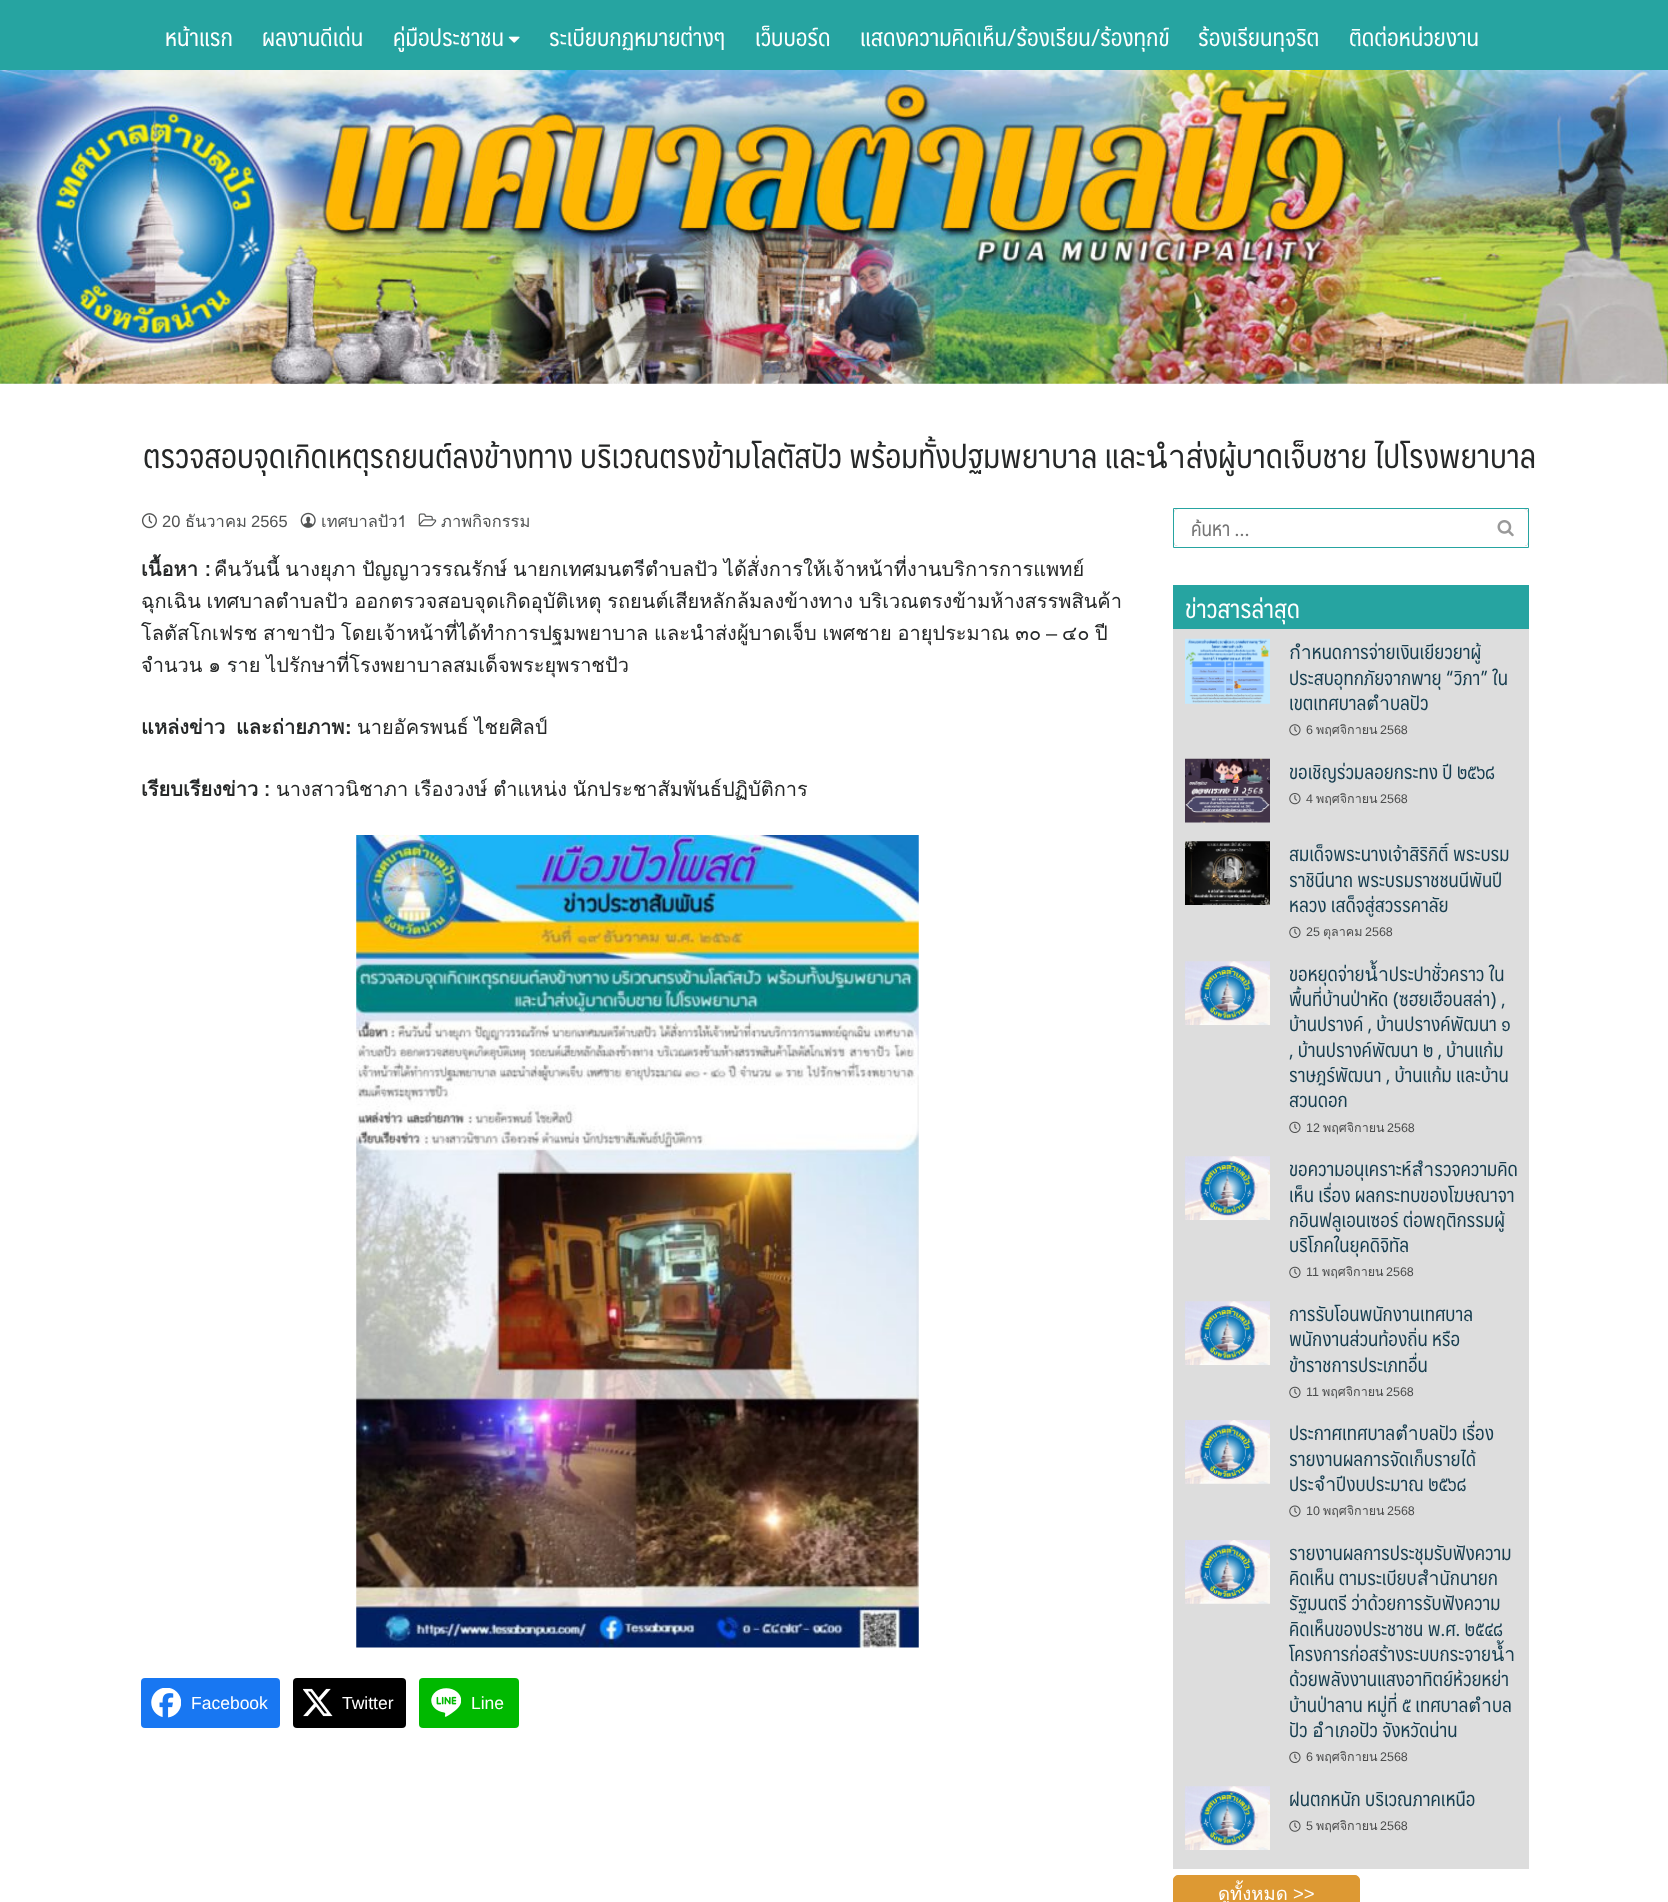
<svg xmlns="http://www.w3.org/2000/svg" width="1668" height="1902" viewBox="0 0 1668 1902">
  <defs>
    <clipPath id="clip1"><path d="M1191 510h287v36H1191z"/></clipPath>
  </defs>
  <rect width="100%" height="100%" fill="#fff"/>
  <path d="M0 0h1668v70H0z" fill="#26a4a1"/>
  <image x="508" y="36" width="12" height="7" href="img/1.png"/>
  <image x="0" y="70" width="1668" height="314" href="img/2.png"/>
  <image x="141" y="513" width="16" height="16" href="img/3.png"/>
  <image x="300" y="512" width="16" height="16" href="img/4.png"/>
  <image x="418" y="513" width="19" height="14" href="img/5.png"/>
  <image x="356" y="835" width="563" height="813" href="img/6.png"/>
  <rect x="141" y="1678" width="139" height="50" rx="4" fill="#1877f2"/>
  <image x="151" y="1688" width="30" height="30" href="img/7.png"/>
  <rect x="293" y="1678" width="113" height="50" rx="4" fill="#000"/>
  <image x="303" y="1688" width="30" height="29" href="img/8.png"/>
  <rect x="419" y="1678" width="100" height="50" rx="4" fill="#00b900"/>
  <image x="431" y="1688" width="30" height="29" href="img/9.png"/>
  <path d="M1173.5 508.5h355v39H1173.5z" fill="none" stroke="#26a4a1"/>
  <rect x="1174" y="509" width="354" height="37" rx="4" fill="#00000080" filter="blur(0.5px)"/>
  <rect x="1174" y="509" width="354" height="37" rx="4" fill="#fff"/>
  <image x="1497" y="520" width="17" height="17" href="img/10.png"/>
  <path d="M1173 629h356v1240H1173z" fill="#ddd"/>
  <path d="M1173 585h356v44H1173z" fill="#26a4a1"/>
  <image x="1185" y="638" width="85" height="66" href="img/11.png"/>
  <image x="1289" y="724" width="12" height="12" href="img/12.png"/>
  <image x="1185" y="758" width="85" height="65" href="img/13.png"/>
  <image x="1289" y="793" width="12" height="12" href="img/14.png"/>
  <image x="1185" y="841" width="85" height="64" href="img/15.png"/>
  <image x="1289" y="926" width="12" height="12" href="img/16.png"/>
  <image x="1185" y="961" width="85" height="64" href="img/17.png"/>
  <image x="1289" y="1121" width="12" height="12" href="img/16.png"/>
  <image x="1185" y="1156" width="85" height="64" href="img/17.png"/>
  <image x="1289" y="1266" width="12" height="12" href="img/16.png"/>
  <image x="1185" y="1301" width="85" height="64" href="img/17.png"/>
  <image x="1289" y="1386" width="12" height="12" href="img/16.png"/>
  <image x="1185" y="1420" width="85" height="64" href="img/18.png"/>
  <image x="1289" y="1505" width="12" height="12" href="img/19.png"/>
  <image x="1185" y="1540" width="85" height="64" href="img/18.png"/>
  <image x="1289" y="1751" width="12" height="12" href="img/16.png"/>
  <image x="1185" y="1786" width="85" height="64" href="img/17.png"/>
  <image x="1289" y="1820" width="12" height="12" href="img/19.png"/>
  <rect x="1173.5" y="1875.5" width="186" height="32" rx="4.5" fill="#d93" stroke="#d93"/>
  <g font-family="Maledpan" font-size="23.75" fill="#fff">
    <text x="165" y="46">หน้าแรก</text>
    <text x="262" y="46">ผลงานดีเด่น</text>
    <text x="393" y="46">คู่มือประชาชน</text>
    <text x="549" y="46">ระเบียบกฏหมายต่างๆ</text>
    <text x="755" y="46">เว็บบอร์ด</text>
    <text x="860" y="46">แสดงความคิดเห็น/ร้องเรียน/ร้องทุกข์</text>
    <text x="1198" y="46">ร้องเรียนทุจริต</text>
    <text x="1349" y="46">ติดต่อหน่วยงาน</text>
  </g>
  <text x="143" y="468" font-family="Maledpan" font-size="32.5" fill="#262828">ตรวจสอบจุดเกิดเหตุรถยนต์ลงข้างทาง บริเวณตรงข้ามโลตัสปัว พร้อมทั้งปฐมพยาบาล และนำส่งผู้บาดเจ็บชาย ไปโรงพยาบาล</text>
  <text x="162" y="527" font-family="Liberation Sans" font-size="16.5" fill="#515353">20</text>
  <text x="185" y="527" font-family="Loma" font-size="16.5" fill="#515353">ธันวาคม</text>
  <text x="251" y="527" font-family="Liberation Sans" font-size="16.5" fill="#515353">2565</text>
  <g font-family="Loma" font-size="16.5" fill="#515353">
    <text x="321" y="527">เทศบาลปัว1</text>
    <text x="441" y="527">ภาพกิจกรรม</text>
  </g>
  <text x="141" y="576" font-family="Loma" font-size="20" font-weight="bold" fill="#262828">เนื้อหา :</text>
  <g font-family="Loma" font-size="20" fill="#262828">
    <text x="214" y="576" word-spacing="-1">คืนวันนี้ นางยุภา ปัญญาวรรณรักษ์ นายกเทศมนตรีตำบลปัว ได้สั่งการให้เจ้าหน้าที่งานบริการการแพทย์</text>
    <text x="141" y="608" word-spacing="-1">ฉุกเฉิน เทศบาลตำบลปัว ออกตรวจสอบจุดเกิดอุบัติเหตุ รถยนต์เสียหลักล้มลงข้างทาง บริเวณตรงข้ามห้างสรรพสินค้า</text>
    <text x="141" y="640" word-spacing="-1">โลตัสโกเฟรช สาขาปัว โดยเจ้าหน้าที่ได้ทำการปฐมพยาบาล และนำส่งผู้บาดเจ็บ เพศชาย อายุประมาณ ๓๐</text>
  </g>
  <text x="1046" y="640" font-family="Liberation Sans" font-size="20" fill="#262828">–</text>
  <g font-family="Loma" font-size="20" fill="#262828">
    <text x="1062" y="640" word-spacing="-1">๔๐ ปี</text>
    <text x="141" y="672" word-spacing="-1">จำนวน ๑ ราย ไปรักษาที่โรงพยาบาลสมเด็จพระยุพราชปัว</text>
  </g>
  <text x="141" y="734" word-spacing="4" font-family="Loma" font-size="20" font-weight="bold" fill="#262828">แหล่งข่าว และถ่ายภาพ</text>
  <text x="345" y="734" font-family="Liberation Sans" font-size="20" font-weight="bold" fill="#262828">:</text>
  <text x="357" y="734" word-spacing="-1" font-family="Loma" font-size="20" fill="#262828">นายอัครพนธ์ ไชยศิลป์</text>
  <text x="141" y="796" word-spacing="-1" font-family="Loma" font-size="20" font-weight="bold" fill="#262828">เรียบเรียงข่าว :</text>
  <text x="276" y="796" word-spacing="-1" font-family="Loma" font-size="20" fill="#262828">นางสาวนิชาภา เรืองวงษ์ ตำแหน่ง นักประชาสัมพันธ์ปฏิบัติการ</text>
  <g font-family="Liberation Sans" font-size="17.5" fill="#fff">
    <text x="191" y="1709">Facebook</text>
    <text x="342" y="1709">Twitter</text>
    <text x="471" y="1709">Line</text>
  </g>
  <g clip-path="url(#clip1)">
    <text x="1191" y="536" font-family="Maledpan" font-size="20" fill="#757575">ค้นหา …</text>
  </g>
  <text x="1185" y="618" font-family="Maledpan" font-size="25" fill="#fff">ข่าวสารล่าสุด</text>
  <g font-family="Maledpan" font-size="19.5" fill="#163d4f">
    <text x="1289" y="659">กำหนดการจ่ายเงินเยียวยาผู้</text>
    <text x="1289" y="685">ประสบอุทกภัยจากพายุ “วิภา” ใน</text>
    <text x="1289" y="710">เขตเทศบาลตำบลปัว</text>
  </g>
  <text x="1306" y="734" font-family="Liberation Sans" font-size="12.5" fill="#4b4c4c">6</text>
  <text x="1316" y="734" font-family="Loma" font-size="12.5" fill="#4b4c4c">พฤศจิกายน</text>
  <text x="1380" y="734" font-family="Liberation Sans" font-size="12.5" fill="#4b4c4c">2568</text>
  <text x="1289" y="779" font-family="Maledpan" font-size="19.5" fill="#163d4f">ขอเชิญร่วมลอยกระทง ปี ๒๕๖๘</text>
  <text x="1306" y="803" font-family="Liberation Sans" font-size="12.5" fill="#4b4c4c">4</text>
  <text x="1316" y="803" font-family="Loma" font-size="12.5" fill="#4b4c4c">พฤศจิกายน</text>
  <text x="1380" y="803" font-family="Liberation Sans" font-size="12.5" fill="#4b4c4c">2568</text>
  <g font-family="Maledpan" font-size="19.5" fill="#163d4f">
    <text x="1289" y="861">สมเด็จพระนางเจ้าสิริกิติ์ พระบรม</text>
    <text x="1289" y="887">ราชินีนาถ พระบรมราชชนนีพันปี</text>
    <text x="1289" y="912">หลวง เสด็จสู่สวรรคาลัย</text>
  </g>
  <text x="1306" y="936" font-family="Liberation Sans" font-size="12.5" fill="#4b4c4c">25</text>
  <text x="1323" y="936" font-family="Loma" font-size="12.5" fill="#4b4c4c">ตุลาคม</text>
  <text x="1365" y="936" font-family="Liberation Sans" font-size="12.5" fill="#4b4c4c">2568</text>
  <g font-family="Maledpan" font-size="19.5" fill="#163d4f">
    <text x="1289" y="981">ขอหยุดจ่ายน้ำประปาชั่วคราว ใน</text>
    <text x="1289" y="1006">พื้นที่บ้านป่าหัด (ซฮยเฮือนสล่า) ,</text>
    <text x="1289" y="1031">บ้านปรางค์ , บ้านปรางค์พัฒนา ๑</text>
    <text x="1289" y="1057">, บ้านปรางค์พัฒนา ๒ , บ้านแก้ม</text>
    <text x="1289" y="1082">ราษฎร์พัฒนา , บ้านแก้ม และบ้าน</text>
    <text x="1289" y="1107">สวนดอก</text>
  </g>
  <text x="1306" y="1132" font-family="Liberation Sans" font-size="12.5" fill="#4b4c4c">12</text>
  <text x="1323" y="1132" font-family="Loma" font-size="12.5" fill="#4b4c4c">พฤศจิกายน</text>
  <text x="1387" y="1132" font-family="Liberation Sans" font-size="12.5" fill="#4b4c4c">2568</text>
  <g font-family="Maledpan" font-size="19.5" fill="#163d4f">
    <text x="1289" y="1176">ขอความอนุเคราะห์สำรวจความคิด</text>
    <text x="1289" y="1202">เห็น เรื่อง ผลกระทบของโฆษณาจา</text>
    <text x="1289" y="1227">กอินฟลูเอนเซอร์ ต่อพฤติกรรมผู้</text>
    <text x="1289" y="1252">บริโภคในยุคดิจิทัล</text>
  </g>
  <text x="1306" y="1276" font-family="Liberation Sans" font-size="12.5" fill="#4b4c4c">11</text>
  <text x="1322" y="1276" font-family="Loma" font-size="12.5" fill="#4b4c4c">พฤศจิกายน</text>
  <text x="1386" y="1276" font-family="Liberation Sans" font-size="12.5" fill="#4b4c4c">2568</text>
  <g font-family="Maledpan" font-size="19.5" fill="#163d4f">
    <text x="1289" y="1321">การรับโอนพนักงานเทศบาล</text>
    <text x="1289" y="1346">พนักงานส่วนท้องถิ่น หรือ</text>
    <text x="1289" y="1372">ข้าราชการประเภทอื่น</text>
  </g>
  <text x="1306" y="1396" font-family="Liberation Sans" font-size="12.5" fill="#4b4c4c">11</text>
  <text x="1322" y="1396" font-family="Loma" font-size="12.5" fill="#4b4c4c">พฤศจิกายน</text>
  <text x="1386" y="1396" font-family="Liberation Sans" font-size="12.5" fill="#4b4c4c">2568</text>
  <g font-family="Maledpan" font-size="19.5" fill="#163d4f">
    <text x="1289" y="1440">ประกาศเทศบาลตำบลปัว เรื่อง</text>
    <text x="1289" y="1466">รายงานผลการจัดเก็บรายได้</text>
    <text x="1289" y="1491">ประจำปีงบประมาณ ๒๕๖๘</text>
  </g>
  <text x="1306" y="1515" font-family="Liberation Sans" font-size="12.5" fill="#4b4c4c">10</text>
  <text x="1323" y="1515" font-family="Loma" font-size="12.5" fill="#4b4c4c">พฤศจิกายน</text>
  <text x="1387" y="1515" font-family="Liberation Sans" font-size="12.5" fill="#4b4c4c">2568</text>
  <g font-family="Maledpan" font-size="19.5" fill="#163d4f">
    <text x="1289" y="1560">รายงานผลการประชุมรับฟังความ</text>
    <text x="1289" y="1585">คิดเห็น ตามระเบียบสำนักนายก</text>
    <text x="1289" y="1610">รัฐมนตรี ว่าด้วยการรับฟังความ</text>
    <text x="1289" y="1636">คิดเห็นของประชาชน พ.ศ. ๒๕๔๘</text>
    <text x="1289" y="1661">โครงการก่อสร้างระบบกระจายน้ำ</text>
    <text x="1289" y="1686">ด้วยพลังงานแสงอาทิตย์ห้วยหย่า</text>
    <text x="1289" y="1712">บ้านป่าลาน หมู่ที่ ๕ เทศบาลตำบล</text>
    <text x="1289" y="1737">ปัว อำเภอปัว จังหวัดน่าน</text>
  </g>
  <text x="1306" y="1761" font-family="Liberation Sans" font-size="12.5" fill="#4b4c4c">6</text>
  <text x="1316" y="1761" font-family="Loma" font-size="12.5" fill="#4b4c4c">พฤศจิกายน</text>
  <text x="1380" y="1761" font-family="Liberation Sans" font-size="12.5" fill="#4b4c4c">2568</text>
  <text x="1289" y="1806" font-family="Maledpan" font-size="19.5" fill="#163d4f">ฝนตกหนัก บริเวณภาคเหนือ</text>
  <text x="1306" y="1830" font-family="Liberation Sans" font-size="12.5" fill="#4b4c4c">5</text>
  <text x="1316" y="1830" font-family="Loma" font-size="12.5" fill="#4b4c4c">พฤศจิกายน</text>
  <text x="1380" y="1830" font-family="Liberation Sans" font-size="12.5" fill="#4b4c4c">2568</text>
  <text x="1218" y="1900" font-family="Loma" font-size="18.5" fill="#fff">ดูทั้งหมด</text>
  <text x="1293" y="1900" font-family="Liberation Sans" font-size="18.5" fill="#fff">&gt;&gt;</text>
</svg>
